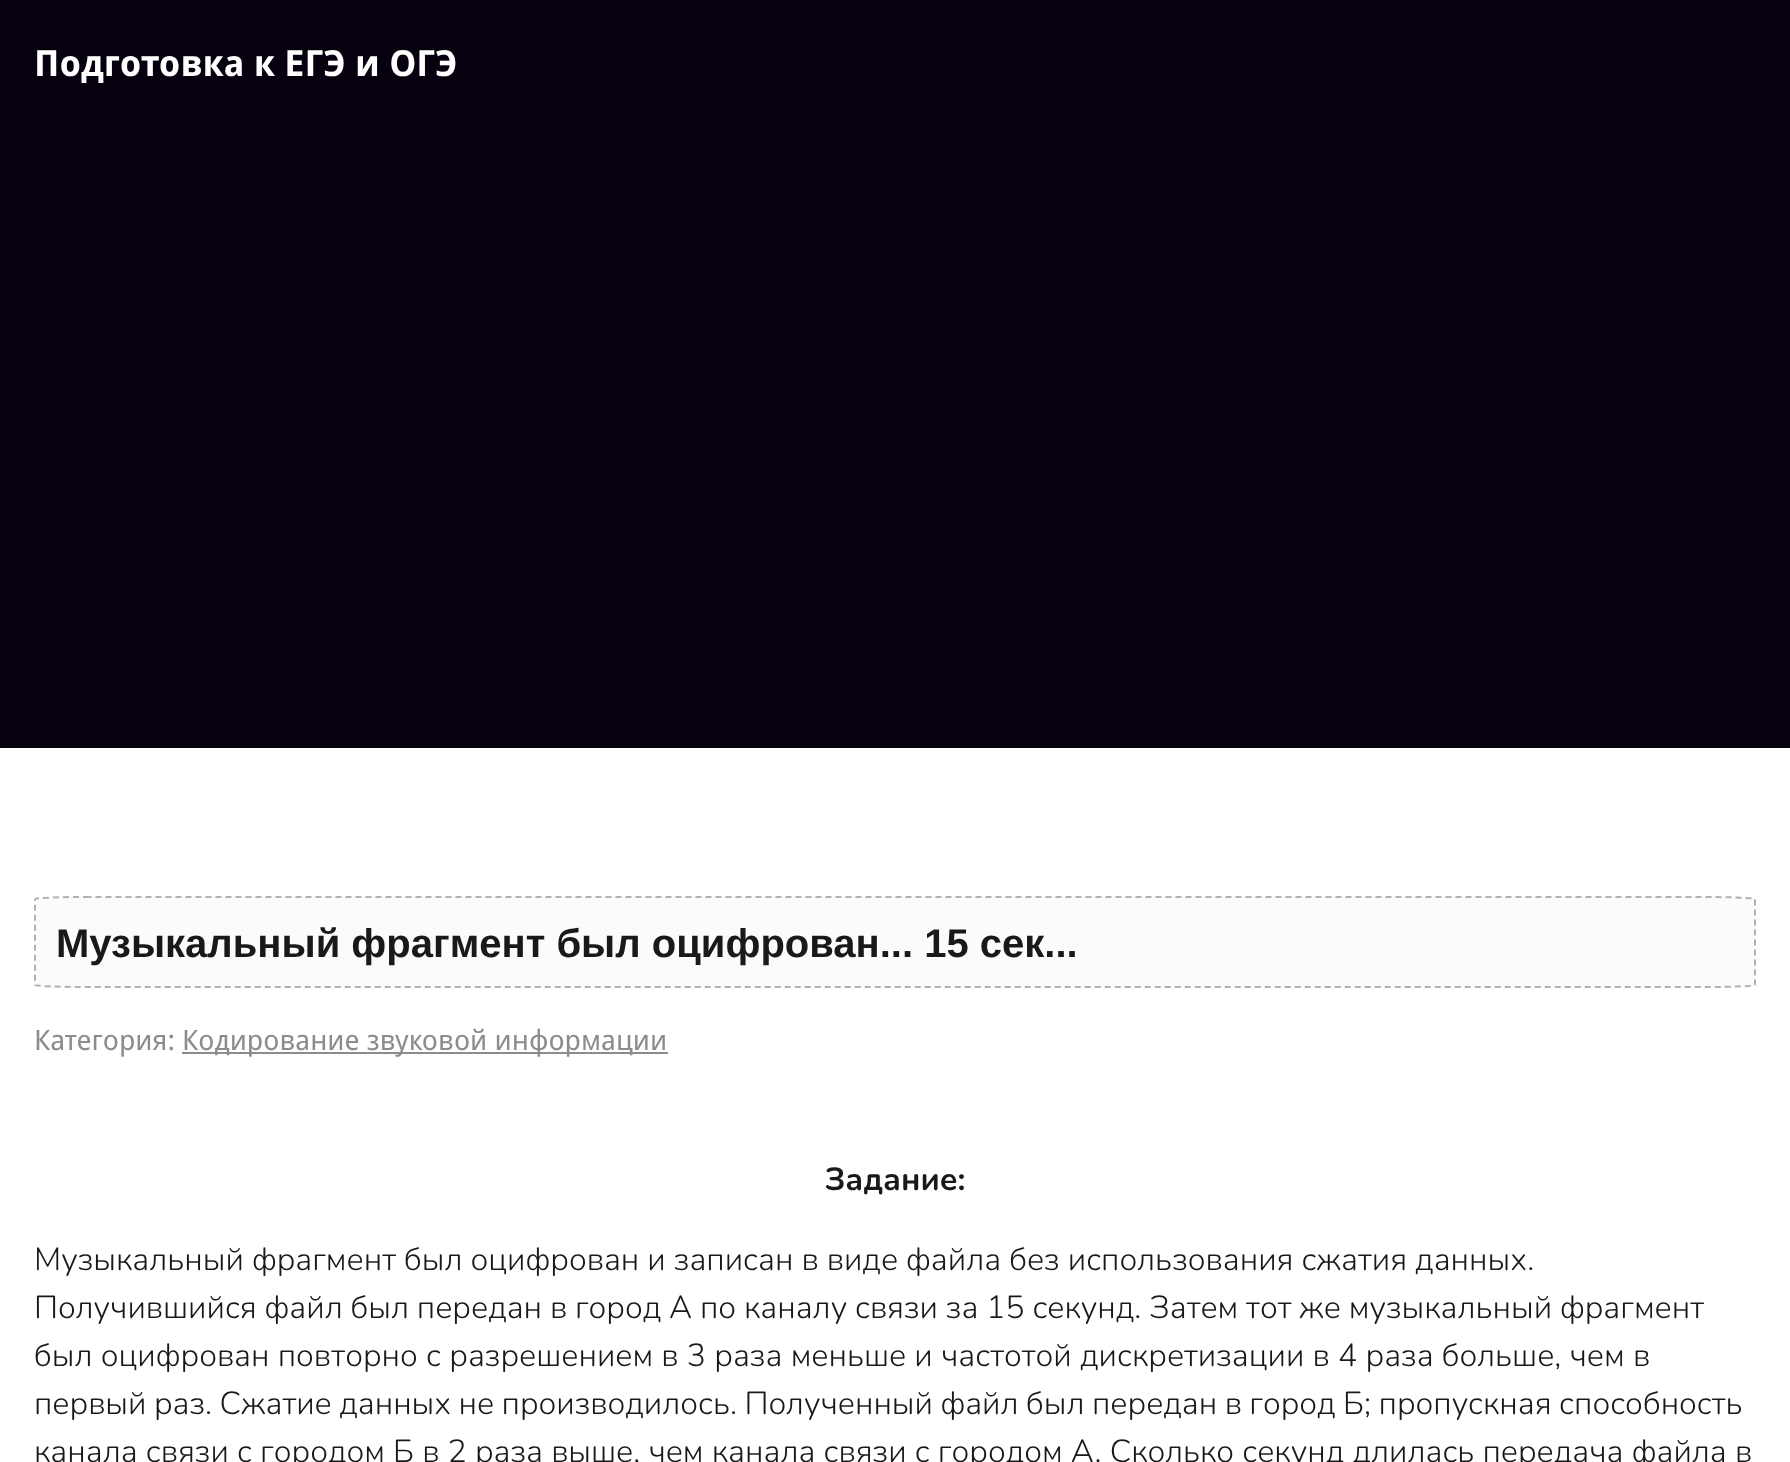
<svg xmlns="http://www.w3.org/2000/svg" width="1790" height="1462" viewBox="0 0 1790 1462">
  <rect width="100%" height="100%" fill="#fff"/>
  <path d="M0 0h1790v748H0z" fill="#06000f"/>
  <path d="M86 896H1704C1733 896 1756 897 1756 899V985C1756 987 1733 988 1704 988H86C57 988 34 987 34 985V899C34 897 57 896 86 896Z" fill="#fbfbfb"/>
  <path d="M85.5 897H1704.5C1732.5 897 1755 898 1755 899V985C1755 986 1732.5 987 1704.5 987H85.5C57.5 987 35 986 35 985V899C35 898 57.5 897 85.5 897Z" fill="none" stroke="#b1b1b1" stroke-width="2" stroke-dasharray="6 4"/>
  <path d="M182 1052h486v2H182z" fill="#8c8c8c"/>
  <text x="34" y="76" font-family="Droid Sans" font-size="36" font-weight="bold" fill="#fff">Подготовка к ЕГЭ и ОГЭ</text>
  <text x="56" y="957" font-family="Liberation Sans" font-size="40" font-weight="bold" fill="#191919">Музыкальный фрагмент был оцифрован... 15 сек...</text>
  <g font-family="Droid Sans" font-size="28" fill="#8c8c8c">
    <text x="34" y="1050">Категория:</text>
    <text x="182" y="1050">Кодирование звуковой информации</text>
  </g>
  <text x="825" y="1190" font-family="Nunito" font-size="32" font-weight="bold" fill="#191919">Задание:</text>
  <g font-family="Nunito" font-size="32" font-weight="300" fill="#191919">
    <text x="34" y="1270">Музыкальный фрагмент был оцифрован и записан в виде файла без использования сжатия данных.</text>
    <text x="34" y="1318" word-spacing="-0.25">Получившийся файл был передан в город А по каналу связи за 15 секунд. Затем тот же музыкальный фрагмент</text>
    <text x="34" y="1366" word-spacing="0.2">был оцифрован повторно с разрешением в 3 раза меньше и частотой дискретизации в 4 раза больше, чем в</text>
    <text x="34" y="1414" word-spacing="-0.6">первый раз. Сжатие данных не производилось. Полученный файл был передан в город Б; пропускная способность</text>
    <text x="34" y="1462" word-spacing="0.1">канала связи с городом Б в 2 раза выше, чем канала связи с городом А. Сколько секунд длилась передача файла в</text>
  </g>
</svg>
